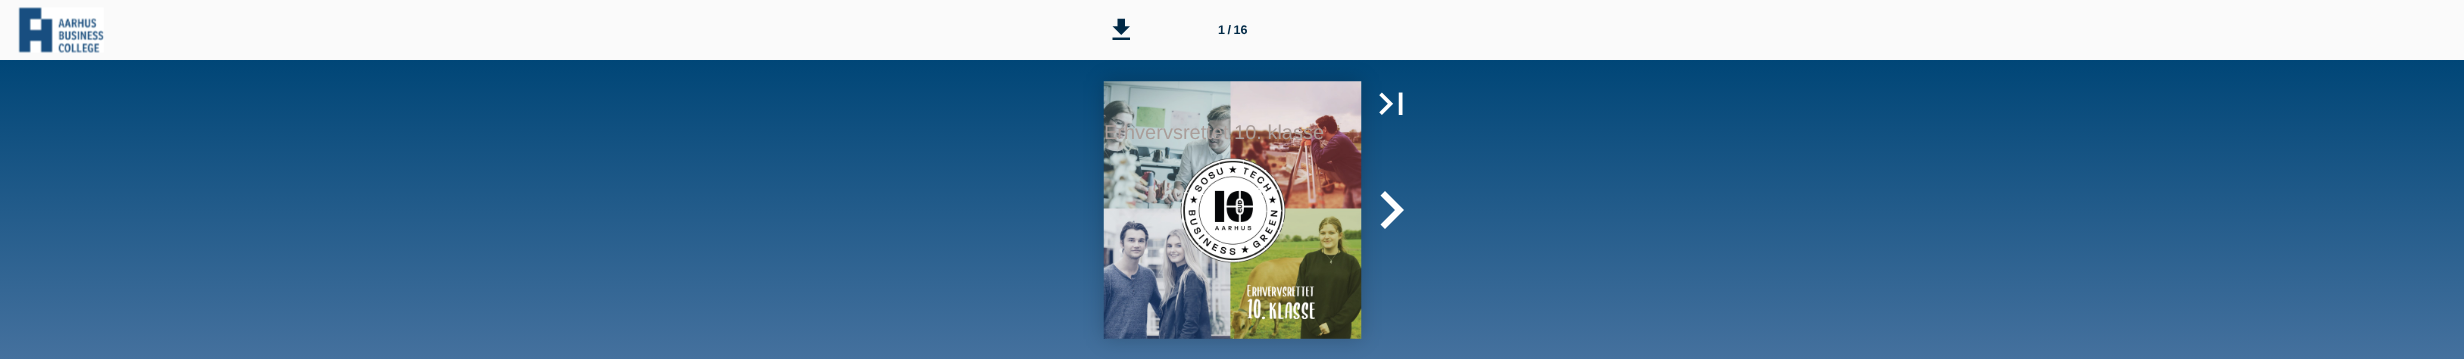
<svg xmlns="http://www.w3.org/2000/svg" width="2464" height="359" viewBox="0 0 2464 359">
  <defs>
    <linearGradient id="g1" gradientUnits="userSpaceOnUse" x1="1233" y1="60" x2="1233" y2="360"><stop offset="0" stop-color="#004677"/><stop offset="1" stop-color="#45719e"/></linearGradient>
  </defs>
  <rect width="100%" height="100%" fill="#fff"/>
  <path d="M0 60h2464v299H0z" fill="url(#g1)"/>
  <path d="M1104 81h257v258H1104z" fill="#00000033" filter="blur(10px)"/>
  <path d="M0 0h2464v60H0z" fill="#fafafa"/>
  <image x="18" y="7" width="86" height="46" href="img/1.png"/>
  <image x="1112" y="18" width="18" height="22" href="img/2.png"/>
  <image x="1103" y="81" width="259" height="258" href="img/3.png"/>
  <image x="1379" y="92" width="24" height="23" href="img/4.png"/>
  <path d="M1385 191L1380.5 195.5L1395 210L1380.5 224.5L1385 229L1404 210Z" fill="#fff"/>
  <text x="1218" y="34" font-family="Liberation Sans" font-size="12.5" font-weight="bold" fill="#002946">1 / 16</text>
  <text x="1104" y="139" font-family="Liberation Sans" font-size="20" fill="#aa9e9a">Erhvervsrettet 10. klasse</text>
</svg>
